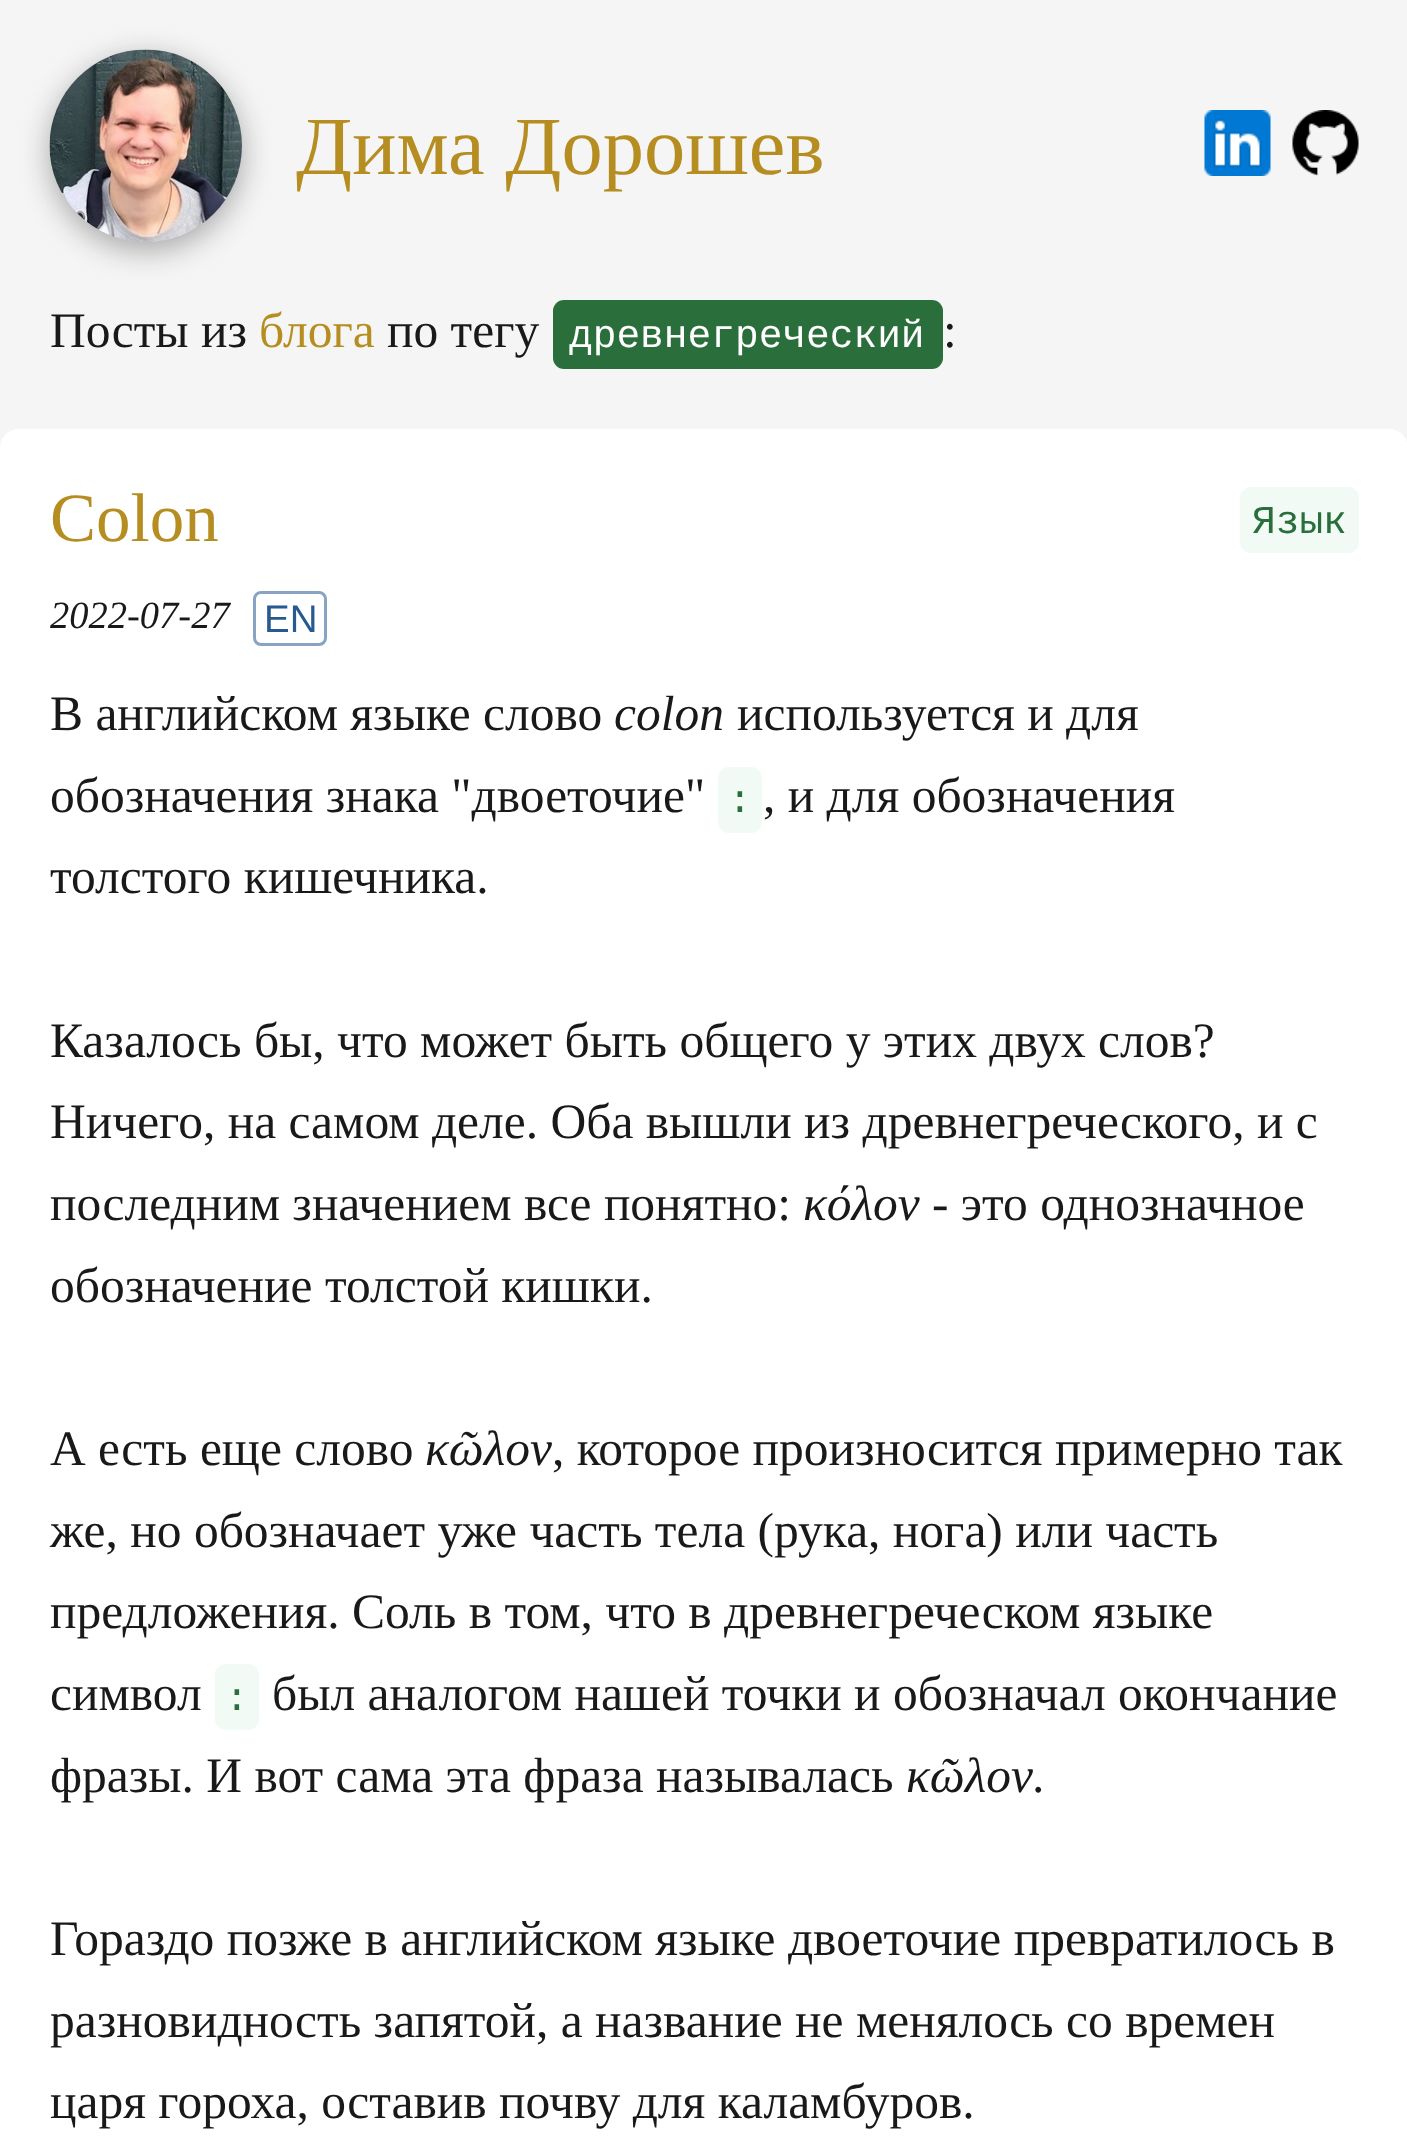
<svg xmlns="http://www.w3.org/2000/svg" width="1407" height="2146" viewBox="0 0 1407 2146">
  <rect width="100%" height="100%" fill="#f5f5f5"/>
  <rect x="50" y="58" width="192" height="192" rx="96" fill="#a5a5a5" filter="blur(15px)"/>
  <image x="49" y="49" width="193" height="193" href="img/1.png"/>
  <image x="1204" y="110" width="67" height="66" href="img/2.png"/>
  <image x="1292" y="110" width="67" height="66" href="img/3.png"/>
  <rect x="553" y="300" width="390" height="69" rx="11" fill="#2a6f3b"/>
  <rect y="429" width="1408" height="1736" rx="19" fill="#fff"/>
  <rect x="1240" y="487" width="119" height="66" rx="11" fill="#f1faf4"/>
  <rect x="254.5" y="592.5" width="71" height="52" rx="6.5" fill="none" stroke="#88a4c2" stroke-width="3"/>
  <rect x="718" y="767" width="44" height="66" rx="11" fill="#f1faf4"/>
  <rect x="215" y="1664" width="44" height="66" rx="11" fill="#f1faf4"/>
  <text x="296" y="174" font-family="Liberation Serif" font-size="82.5" fill="#b58d20">Дима Дорошев</text>
  <text x="50" y="347" font-family="Liberation Serif" font-size="49.5" fill="#1a1919">Посты из</text>
  <text x="259" y="347" font-family="Liberation Serif" font-size="49.5" fill="#b58d20">блога</text>
  <text x="387" y="347" font-family="Liberation Serif" font-size="49.5" fill="#1a1919">по тегу</text>
  <text x="569" y="347" font-family="Liberation Mono" font-size="39.5" fill="#fff">древнегреческий</text>
  <text x="943" y="347" font-family="Liberation Serif" font-size="49.5" fill="#1a1919">:</text>
  <text x="50" y="541" font-family="Liberation Serif" font-size="69" fill="#b58d20">Colon</text>
  <text x="1252" y="533" font-family="Liberation Mono" font-size="39.5" fill="#2a6f3b">Язык</text>
  <text x="50" y="628" font-family="Liberation Serif" font-size="38.5" font-style="italic" fill="#1a1919">2022-07-27</text>
  <text x="264" y="632" font-family="Liberation Sans" font-size="38.5" fill="#275a90">EN</text>
  <text x="50" y="730" font-family="Liberation Serif" font-size="49.5" fill="#1a1919">В английском языке слово</text>
  <text x="614" y="730" font-family="Liberation Serif" font-size="49.5" font-style="italic" fill="#1a1919">colon</text>
  <g font-family="Liberation Serif" font-size="49.5" fill="#1a1919">
    <text x="737" y="730">используется и для</text>
    <text x="50" y="812">обозначения знака "двоеточие"</text>
  </g>
  <text x="728" y="812" font-family="Liberation Mono" font-size="39.5" fill="#2a6f3b">:</text>
  <g font-family="Liberation Serif" font-size="49.5" fill="#1a1919">
    <text x="763" y="812">, и для обозначения</text>
    <text x="50" y="893">толстого кишечника.</text>
    <text x="50" y="1057">Казалось бы, что может быть общего у этих двух слов?</text>
    <text x="50" y="1138">Ничего, на самом деле. Оба вышли из древнегреческого, и с</text>
    <text x="50" y="1220">последним значением все понятно:</text>
  </g>
  <text x="803" y="1220" font-family="Liberation Serif" font-size="49.5" font-style="italic" fill="#1a1919">κόλον</text>
  <g font-family="Liberation Serif" font-size="49.5" fill="#1a1919">
    <text x="932" y="1220">- это однозначное</text>
    <text x="50" y="1302">обозначение толстой кишки.</text>
    <text x="50" y="1465">А есть еще слово</text>
  </g>
  <text x="425" y="1465" font-family="Liberation Serif" font-size="49.5" font-style="italic" fill="#1a1919">κῶλον</text>
  <g font-family="Liberation Serif" font-size="49.5" fill="#1a1919">
    <text x="552" y="1465">, которое произносится примерно так</text>
    <text x="50" y="1547">же, но обозначает уже часть тела (рука, нога) или часть</text>
    <text x="50" y="1628">предложения. Соль в том, что в древнегреческом языке</text>
    <text x="50" y="1710">символ</text>
  </g>
  <text x="225" y="1710" font-family="Liberation Mono" font-size="39.5" fill="#2a6f3b">:</text>
  <g font-family="Liberation Serif" font-size="49.5" fill="#1a1919">
    <text x="272" y="1710">был аналогом нашей точки и обозначал окончание</text>
    <text x="50" y="1792">фразы. И вот сама эта фраза называлась</text>
  </g>
  <text x="906" y="1792" font-family="Liberation Serif" font-size="49.5" font-style="italic" fill="#1a1919">κῶλον</text>
  <g font-family="Liberation Serif" font-size="49.5" fill="#1a1919">
    <text x="1032" y="1792">.</text>
    <text x="50" y="1955">Гораздо позже в английском языке двоеточие превратилось в</text>
    <text x="50" y="2037">разновидность запятой, а название не менялось со времен</text>
    <text x="50" y="2118">царя гороха, оставив почву для каламбуров.</text>
  </g>
</svg>
